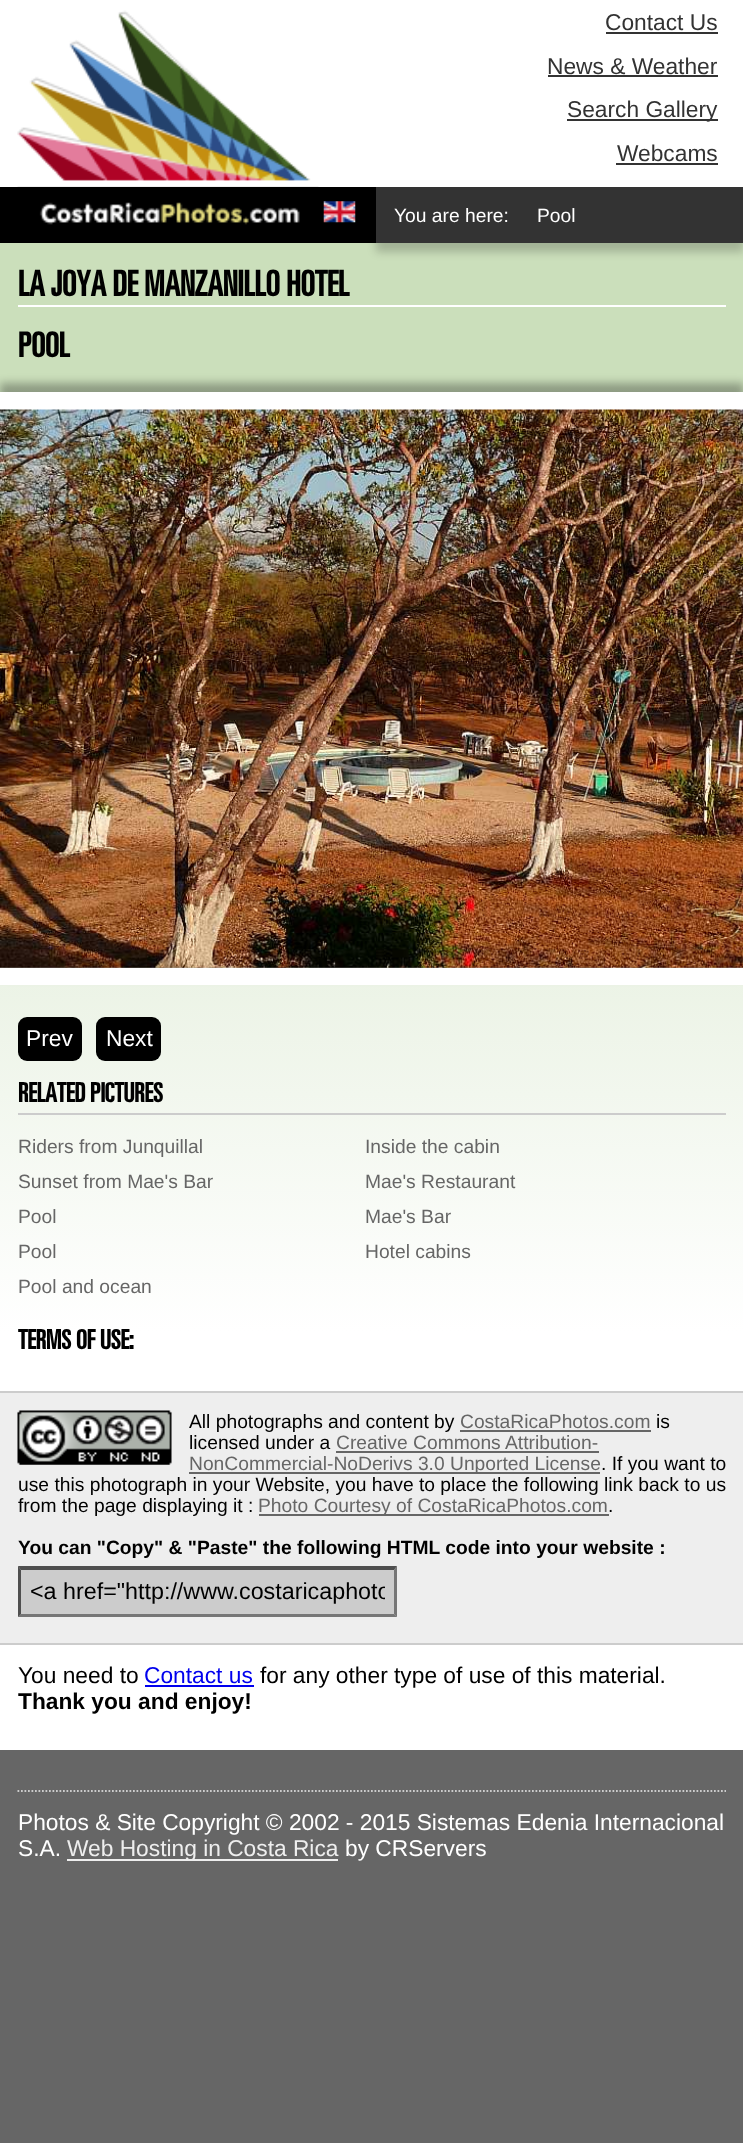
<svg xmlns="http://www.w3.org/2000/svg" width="743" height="2143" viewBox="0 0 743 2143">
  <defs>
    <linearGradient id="g1" gradientUnits="userSpaceOnUse" x1="372" y1="0" x2="372" y2="1902"><stop offset="0.2" stop-color="#cbdfbb"/><stop offset="0.7" stop-color="#fff"/></linearGradient>
    <clipPath id="clip1"><path d="M30 1579h355v26H30z"/></clipPath>
  </defs>
  <rect width="100%" height="100%" fill="#666"/>
  <path d="M0 243h743v1507H0z" fill="url(#g1)"/>
  <path d="M0 0h743v187H0z" fill="#fff"/>
  <path d="M0 187h376v56H0z" fill="#000"/>
  <image x="17" y="10" width="302" height="215" href="img/1.png"/>
  <path d="M606 32h112v2H606z" fill="#333"/>
  <path d="M548 75h170v2H548z" fill="#333"/>
  <path d="M567 119h151v2H567z" fill="#333"/>
  <path d="M616 163h102v2H616z" fill="#333"/>
  <image x="323" y="201" width="33" height="22" href="img/2.png"/>
  <path d="M376 196h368v56H376z" fill="#00000033" filter="blur(4.5px)"/>
  <path d="M376 187h367v56H376z" fill="#333"/>
  <path d="M18 305h708v2H18z" fill="#fff"/>
  <path d="M0 383h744v594H0z" fill="#0000004d" filter="blur(4.5px)"/>
  <path d="M0 392h743v18H0z" fill="#fff"/>
  <image x="0" y="409" width="743" height="559" href="img/3.png"/>
  <path d="M0 968h743v17H0z" fill="#fff"/>
  <rect x="18" y="1017" width="64" height="44" rx="9" fill="#000"/>
  <rect x="96" y="1017" width="65" height="44" rx="9" fill="#000"/>
  <path d="M18 1113h708v2H18z" fill="#ccc"/>
  <path d="M0 1393h743v250H0z" fill="#eee"/>
  <path d="M0 1391h743v2H0z" fill="#ccc"/>
  <path d="M0 1643h743v2H0z" fill="#ccc"/>
  <image x="17" y="1410" width="155" height="55" href="img/4.png"/>
  <path d="M460 1430h191v2H460z" fill="#666"/>
  <path d="M336 1451h263v2H336z" fill="#666"/>
  <path d="M189 1472h411v2H189z" fill="#666"/>
  <path d="M259 1514h350v2H259z" fill="#666"/>
  <path d="M18 1566h379v51H18z" fill="#ccc"/>
  <path d="M18 1566H397L394 1570H21Z" fill="#4f4f4f"/>
  <path d="M397 1566V1617L394 1614V1570Z" fill="#767676"/>
  <path d="M397 1617H18L21 1614H394Z" fill="#767676"/>
  <path d="M18 1617V1566L21 1570V1614Z" fill="#4f4f4f"/>
  <path d="M145 1685h109v2H145z" fill="#00e"/>
  <path d="M17.5 1791H726" fill="none" stroke="#ccc" stroke-width="1.8" stroke-dasharray="1.75 1.75"/>
  <path d="M67 1859h271v2H67z" fill="#eee"/>
  <g font-family="Liberation Sans" font-size="22.75" fill="#333">
    <text x="605" y="30">Contact Us</text>
    <text x="547" y="74">News &amp; Weather</text>
    <text x="567" y="117">Search Gallery</text>
    <text x="617" y="161">Webcams</text>
  </g>
  <g font-family="Liberation Sans" font-size="19.25" fill="#fff">
    <text x="394" y="222">You are here:</text>
    <text x="537" y="222">Pool</text>
  </g>
  <text x="18" y="296" font-family="Univers" font-size="35" font-weight="bold" fill="#000">LA JOYA DE MANZANILLO HOTEL</text>
  <text x="18" y="357" font-family="Univers" font-size="34" font-weight="bold" fill="#000">POOL</text>
  <g font-family="Liberation Sans" font-size="22.75" fill="#fff">
    <text x="26" y="1046">Prev</text>
    <text x="106" y="1046">Next</text>
  </g>
  <text x="18" y="1102" font-family="Univers" font-size="26.5" font-weight="bold" fill="#000">RELATED PICTURES</text>
  <g font-family="Liberation Sans" font-size="19.25" fill="#666">
    <text x="18" y="1153">Riders from Junquillal</text>
    <text x="365" y="1153">Inside the cabin</text>
    <text x="18" y="1188">Sunset from Mae's Bar</text>
    <text x="365" y="1188">Mae's Restaurant</text>
    <text x="18" y="1223">Pool</text>
    <text x="365" y="1223">Mae's Bar</text>
    <text x="18" y="1258">Pool</text>
    <text x="365" y="1258">Hotel cabins</text>
    <text x="18" y="1293">Pool and ocean</text>
  </g>
  <text x="18" y="1349" font-family="Univers" font-size="26.5" font-weight="bold" fill="#000">TERMS OF USE:</text>
  <text x="189" y="1428" font-family="Liberation Sans" font-size="19.25" fill="#000">All photographs and content by</text>
  <text x="460" y="1428" font-family="Liberation Sans" font-size="19.25" fill="#666">CostaRicaPhotos.com</text>
  <g font-family="Liberation Sans" font-size="19.25" fill="#000">
    <text x="656" y="1428">is</text>
    <text x="189" y="1449">licensed under a</text>
  </g>
  <g font-family="Liberation Sans" font-size="19.25" fill="#666">
    <text x="336" y="1449">Creative Commons Attribution-</text>
    <text x="189" y="1470">NonCommercial-NoDerivs 3.0 Unported License</text>
  </g>
  <g font-family="Liberation Sans" font-size="19.25" fill="#000">
    <text x="601" y="1470">. If you want to</text>
    <text x="18" y="1491">use this photograph in your Website, you have to place the following link back to us</text>
    <text x="18" y="1512">from the page displaying it :</text>
  </g>
  <text x="258" y="1512" font-family="Liberation Sans" font-size="19.25" fill="#666">Photo Courtesy of CostaRicaPhotos.com</text>
  <text x="608" y="1512" font-family="Liberation Sans" font-size="19.25" fill="#000">.</text>
  <text x="18" y="1554" font-family="Liberation Sans" font-size="19.25" font-weight="bold" fill="#000">You can "Copy" &amp; "Paste" the following HTML code into your website :</text>
  <g clip-path="url(#clip1)">
    <text x="30" y="1599" font-family="Liberation Sans" font-size="23.3" fill="#000">&lt;a href="http://www.costaricaphoto</text>
  </g>
  <text x="18" y="1683" font-family="Liberation Sans" font-size="22.75" fill="#000">You need to</text>
  <text x="144" y="1683" font-family="Liberation Sans" font-size="22.75" fill="#00e">Contact us</text>
  <text x="260" y="1683" font-family="Liberation Sans" font-size="22.75" fill="#000">for any other type of use of this material.</text>
  <text x="18" y="1709" font-family="Liberation Sans" font-size="22.75" font-weight="bold" fill="#000">Thank you and enjoy!</text>
  <g font-family="Liberation Sans" font-size="22.75" fill="#fff">
    <text x="18" y="1830">Photos &amp; Site Copyright © 2002 - 2015 Sistemas Edenia Internacional</text>
    <text x="18" y="1856">S.A.</text>
  </g>
  <text x="67" y="1856" font-family="Liberation Sans" font-size="22.75" fill="#eee">Web Hosting in Costa Rica</text>
  <text x="345" y="1856" font-family="Liberation Sans" font-size="22.75" fill="#fff">by CRServers</text>
</svg>
